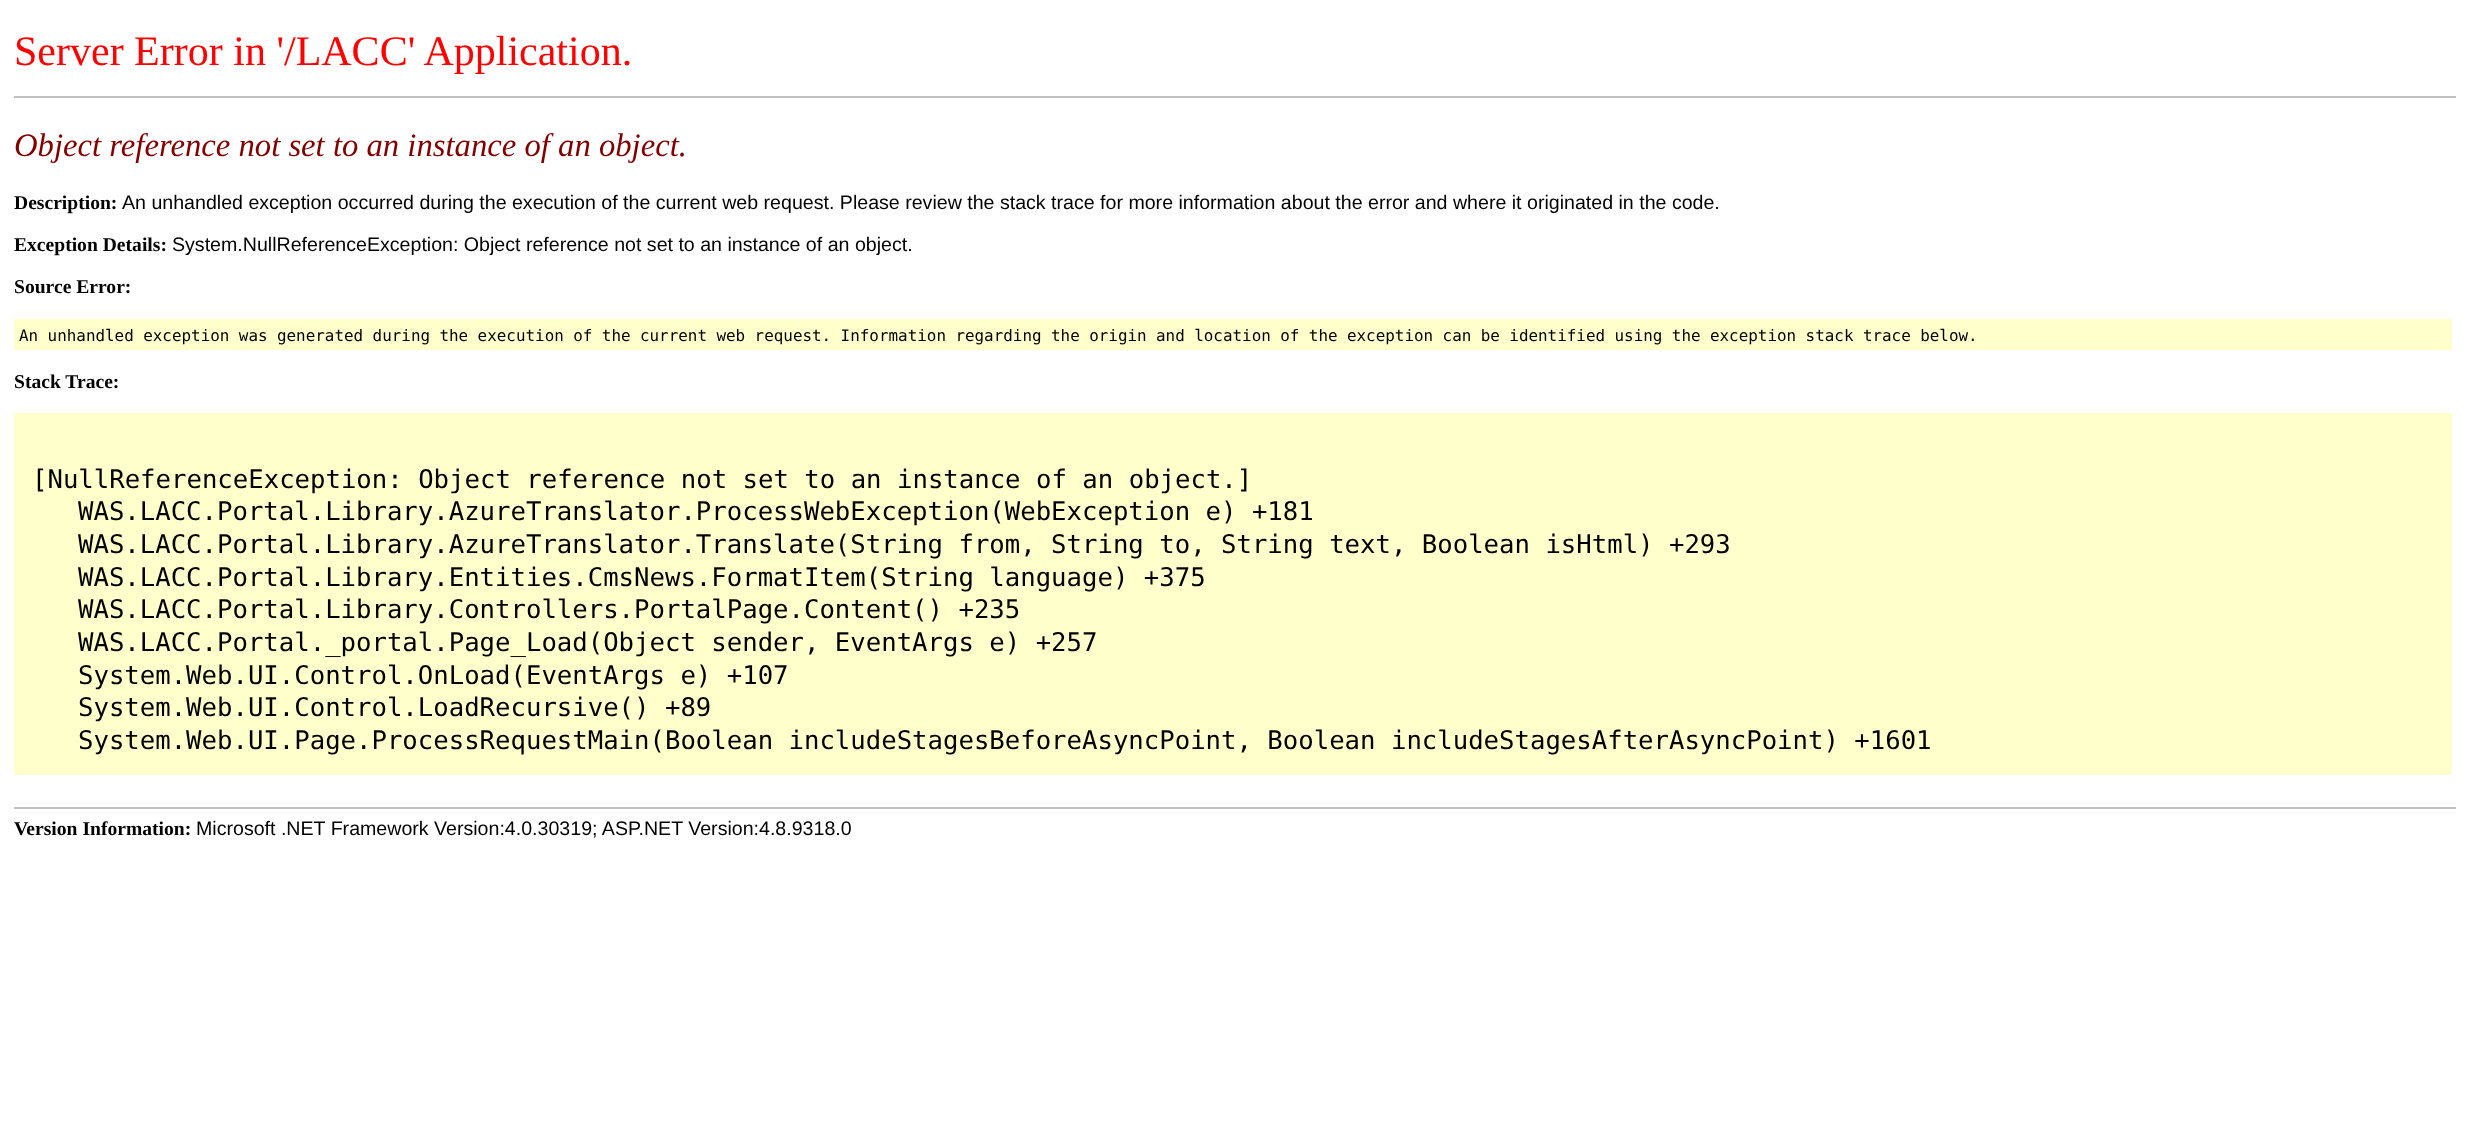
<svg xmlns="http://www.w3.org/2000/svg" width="2465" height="1148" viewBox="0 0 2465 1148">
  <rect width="100%" height="100%" fill="#fff"/>
  <path d="M14 96h2442v2H14z" fill="#c0c0c0"/>
  <path d="M14 319h2438v31H14z" fill="#ffc"/>
  <path d="M14 413h2438v362H14z" fill="#ffc"/>
  <path d="M14 807h2442v2H14z" fill="#c0c0c0"/>
  <text x="14" y="65" font-family="Liberation Serif" font-size="42" fill="#f00">Server Error in '/LACC' Application.</text>
  <text x="14" y="156" font-family="Liberation Serif" font-size="32.7" font-style="italic" fill="#800000">Object reference not set to an instance of an object.</text>
  <text x="14" y="209" font-family="Liberation Serif" font-size="19.6" font-weight="bold" fill="#000">Description:</text>
  <text x="122" y="209" font-family="Liberation Sans" font-size="19.6" fill="#000">An unhandled exception occurred during the execution of the current web request. Please review the stack trace for more information about the error and where it originated in the code.</text>
  <text x="14" y="251" font-family="Liberation Serif" font-size="19.6" font-weight="bold" fill="#000">Exception Details:</text>
  <text x="172" y="251" font-family="Liberation Sans" font-size="19.6" fill="#000">System.NullReferenceException: Object reference not set to an instance of an object.</text>
  <text x="14" y="293" font-family="Liberation Serif" font-size="19.6" font-weight="bold" fill="#000">Source Error:</text>
  <text x="19" y="341" word-spacing="-0.15" font-family="DejaVu Sans Mono" font-size="15.92" fill="#000">An unhandled exception was generated during the execution of the current web request. Information regarding the origin and location of the exception can be identified using the exception stack trace below.</text>
  <text x="14" y="388" font-family="Liberation Serif" font-size="19.6" font-weight="bold" fill="#000">Stack Trace:</text>
  <g font-family="DejaVu Sans Mono" font-size="25.67" fill="#000">
    <text x="32" y="488">[NullReferenceException: Object reference not set to an instance of an object.]</text>
    <text x="78" y="520">WAS.LACC.Portal.Library.AzureTranslator.ProcessWebException(WebException e) +181</text>
    <text x="78" y="553">WAS.LACC.Portal.Library.AzureTranslator.Translate(String from, String to, String text, Boolean isHtml) +293</text>
    <text x="78" y="586">WAS.LACC.Portal.Library.Entities.CmsNews.FormatItem(String language) +375</text>
    <text x="78" y="618">WAS.LACC.Portal.Library.Controllers.PortalPage.Content() +235</text>
    <text x="78" y="651">WAS.LACC.Portal._portal.Page_Load(Object sender, EventArgs e) +257</text>
    <text x="78" y="684">System.Web.UI.Control.OnLoad(EventArgs e) +107</text>
    <text x="78" y="716">System.Web.UI.Control.LoadRecursive() +89</text>
    <text x="78" y="749">System.Web.UI.Page.ProcessRequestMain(Boolean includeStagesBeforeAsyncPoint, Boolean includeStagesAfterAsyncPoint) +1601</text>
  </g>
  <text x="14" y="835" font-family="Liberation Serif" font-size="19.6" font-weight="bold" fill="#000">Version Information:</text>
  <text x="196" y="835" font-family="Liberation Sans" font-size="19.6" fill="#000">Microsoft .NET Framework Version:4.0.30319; ASP.NET Version:4.8.9318.0</text>
</svg>
